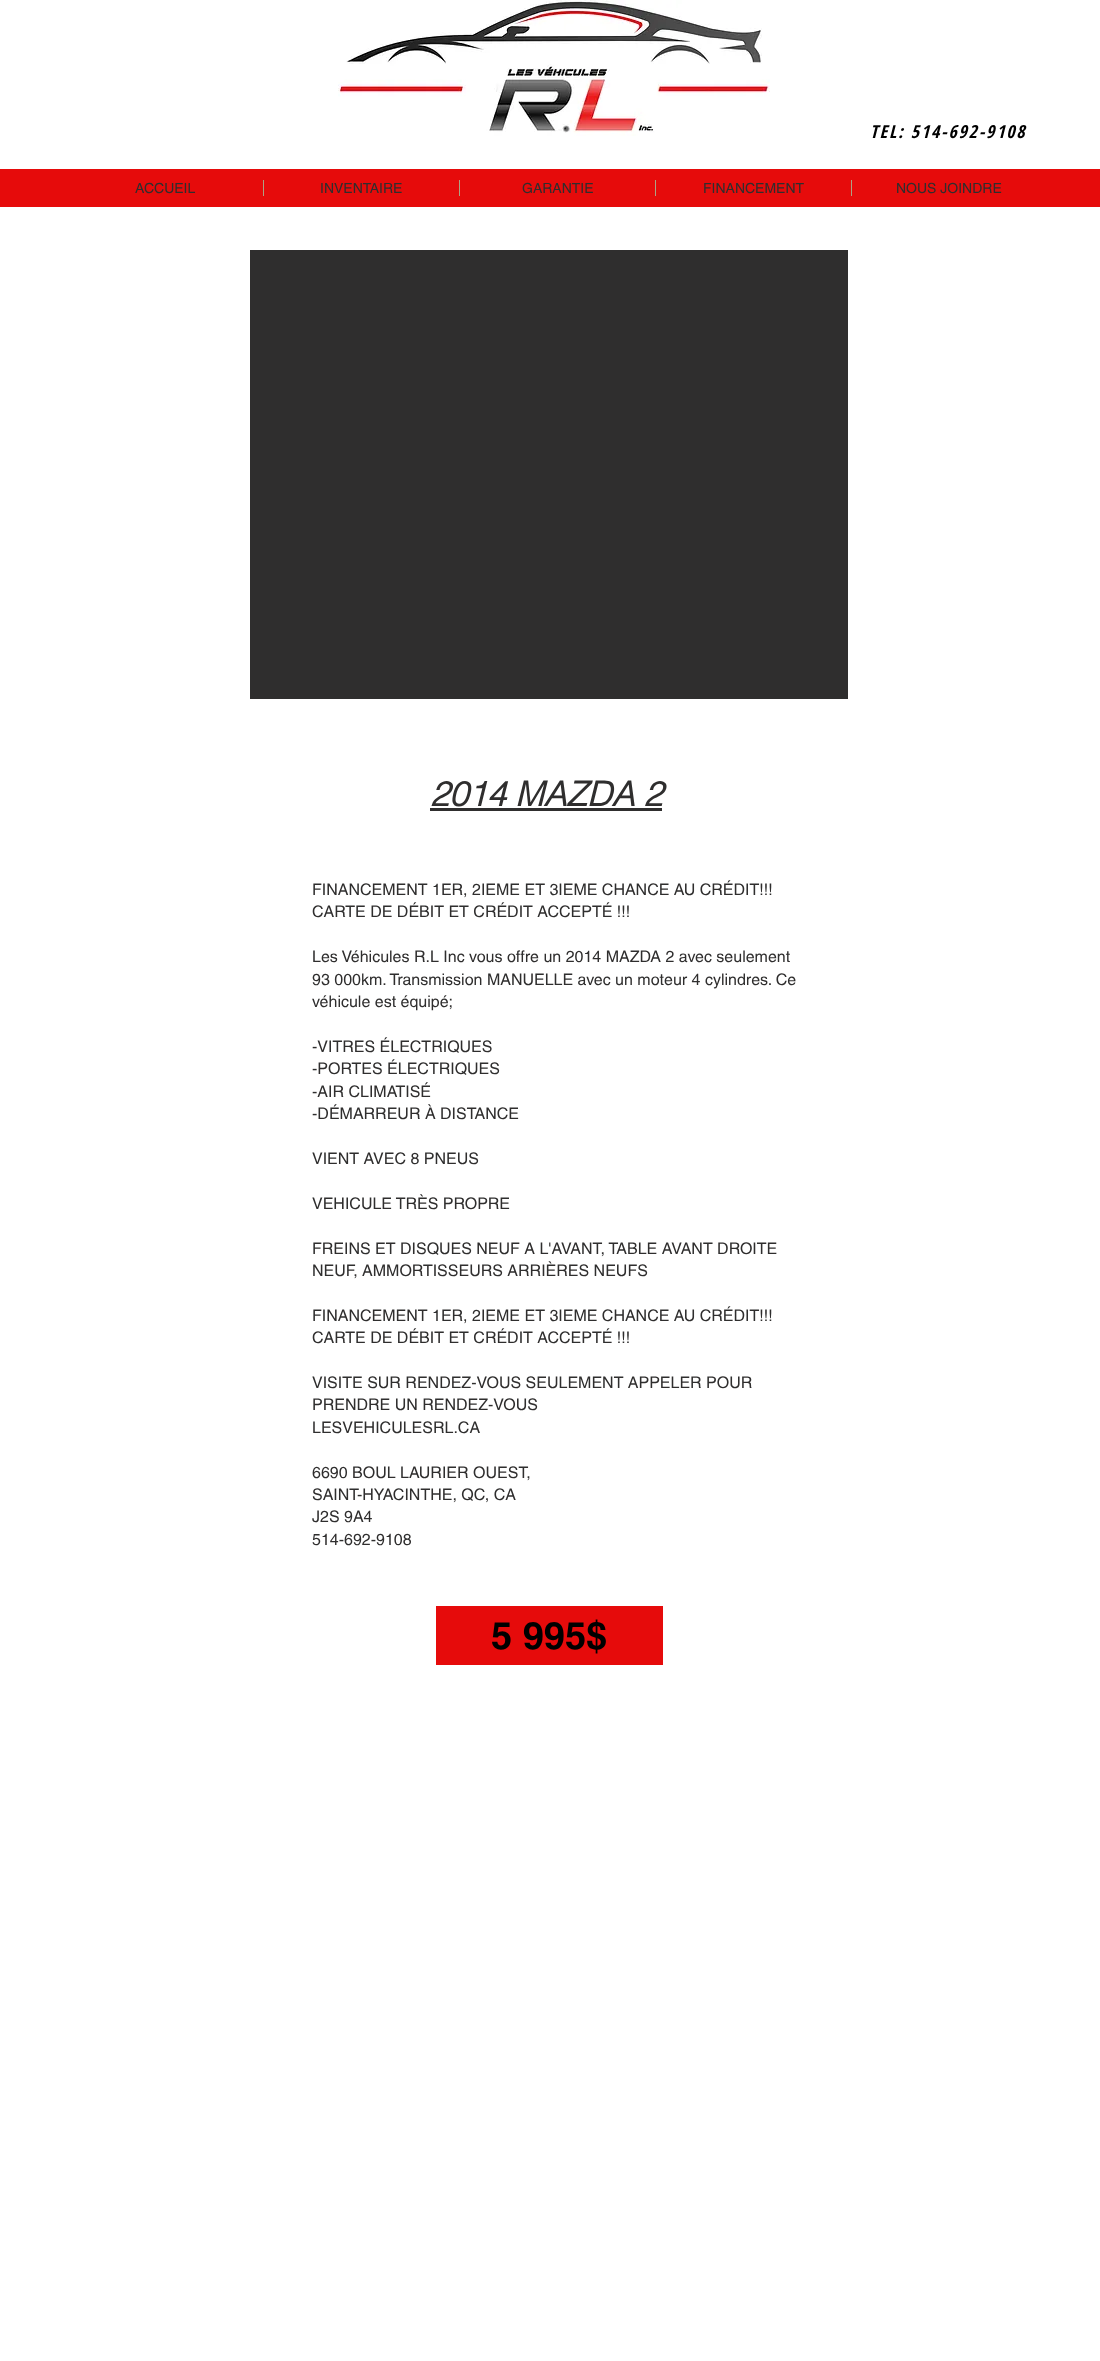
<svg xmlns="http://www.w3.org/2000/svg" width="1100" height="2361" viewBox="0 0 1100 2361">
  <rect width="100%" height="100%" fill="#fff"/>
  <image x="338" y="0" width="432" height="136" href="img/1.png"/>
  <path d="M0 169h1100v38H0z" fill="#e60b0b"/>
  <path d="M263 180h1v16H263z" fill="#ada284"/>
  <path d="M459 180h1v16H459z" fill="#ada284"/>
  <path d="M655 180h1v16H655z" fill="#ada284"/>
  <path d="M851 180h1v16H851z" fill="#ada284"/>
  <path d="M250 250h598v449H250z" fill="#2f2e2e"/>
  <path d="M430 808h232v3H430z" fill="#2f2e2e"/>
  <path d="M436 1606h227v59H436z" fill="#e60b0b"/>
  <text x="870" y="138" font-family="Open Sans Condensed" font-size="18" font-weight="bold" font-style="italic" letter-spacing="1.75" fill="#000">TEL: 514-692-9108</text>
  <g font-family="helvetica" font-size="14" fill="#2f2e2e">
    <text x="135" y="193">ACCUEIL</text>
    <text x="320" y="193">INVENTAIRE</text>
    <text x="522" y="193">GARANTIE</text>
    <text x="703" y="193">FINANCEMENT</text>
    <text x="896" y="193">NOUS JOINDRE</text>
  </g>
  <text x="430" y="806" font-family="helvetica" font-size="34" font-weight="bold" font-style="italic" fill="#2f2e2e">2014 MAZDA 2</text>
  <g font-family="helvetica" font-size="16" fill="#2f2e2e">
    <text x="312" y="895">FINANCEMENT 1ER, 2IEME ET 3IEME CHANCE AU CRÉDIT!!!</text>
    <text x="312" y="917">CARTE DE DÉBIT ET CRÉDIT ACCEPTÉ !!!</text>
    <text x="312" y="962">Les Véhicules R.L Inc vous offre un 2014 MAZDA 2 avec seulement</text>
    <text x="312" y="985">93 000km. Transmission MANUELLE avec un moteur 4 cylindres. Ce</text>
    <text x="312" y="1007">véhicule est équipé;</text>
    <text x="312" y="1052">-VITRES ÉLECTRIQUES</text>
    <text x="312" y="1074">-PORTES ÉLECTRIQUES</text>
    <text x="312" y="1097">-AIR CLIMATISÉ</text>
    <text x="312" y="1119">-DÉMARREUR À DISTANCE</text>
    <text x="312" y="1164">VIENT AVEC 8 PNEUS</text>
    <text x="312" y="1209">VEHICULE TRÈS PROPRE</text>
    <text x="312" y="1254">FREINS ET DISQUES NEUF A L'AVANT, TABLE AVANT DROITE</text>
    <text x="312" y="1276">NEUF, AMMORTISSEURS ARRIÈRES NEUFS</text>
    <text x="312" y="1321">FINANCEMENT 1ER, 2IEME ET 3IEME CHANCE AU CRÉDIT!!!</text>
    <text x="312" y="1343">CARTE DE DÉBIT ET CRÉDIT ACCEPTÉ !!!</text>
    <text x="312" y="1388">VISITE SUR RENDEZ-VOUS SEULEMENT APPELER POUR</text>
    <text x="312" y="1410">PRENDRE UN RENDEZ-VOUS</text>
    <text x="312" y="1433">LESVEHICULESRL.CA</text>
    <text x="312" y="1478">6690 BOUL LAURIER OUEST,</text>
    <text x="312" y="1500">SAINT-HYACINTHE, QC, CA</text>
    <text x="312" y="1522">J2S 9A4</text>
    <text x="312" y="1545">514-692-9108</text>
  </g>
  <text x="491" y="1649" font-family="helvetica" font-size="38" font-weight="bold" fill="#000">5 995$</text>
</svg>
